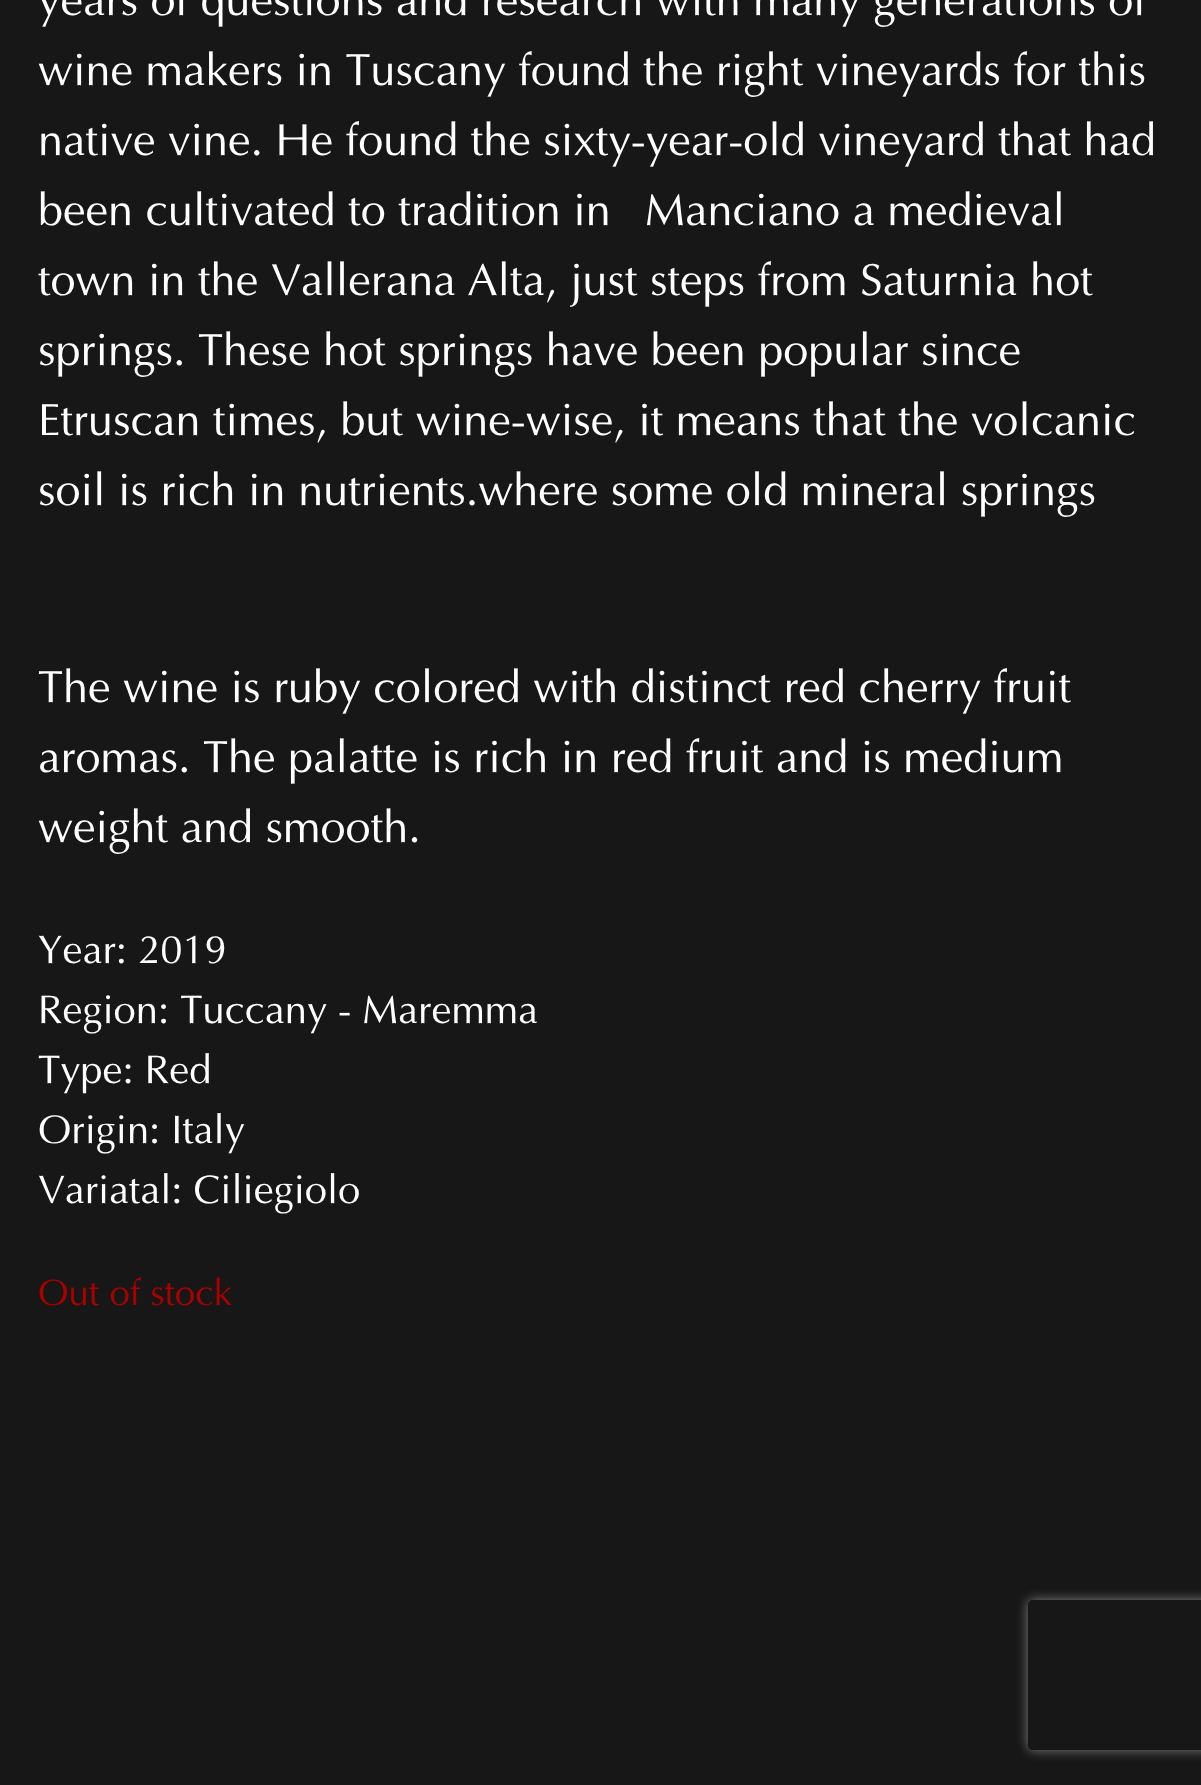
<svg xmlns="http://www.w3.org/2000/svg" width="1201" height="1785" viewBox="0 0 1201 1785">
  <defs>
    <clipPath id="clip1"><path d="M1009 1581H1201V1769H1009ZM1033 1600H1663C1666 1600 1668 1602 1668 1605V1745C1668 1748 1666 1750 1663 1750H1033C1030 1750 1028 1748 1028 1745V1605C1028 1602 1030 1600 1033 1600Z" clip-rule="evenodd"/></clipPath>
  </defs>
  <rect width="100%" height="100%" fill="#171717"/>
  <g clip-path="url(#clip1)">
    <rect x="1028" y="1600" width="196" height="150" rx="5" fill="#808080" filter="blur(6px)"/>
  </g>
  <g font-family="Optima" font-size="45" fill="#fff">
    <text x="38" y="15">years of questions and research with many generations of</text>
    <text x="38" y="85">wine makers in Tuscany found the right vineyards for this</text>
    <text x="38" y="155">native vine. He found the sixty-year-old vineyard that had</text>
    <text x="38" y="225">been cultivated to tradition in</text>
    <text x="645" y="225">Manciano a medieval</text>
    <text x="38" y="295">town in the Vallerana Alta, just steps from Saturnia hot</text>
    <text x="38" y="365">springs. These hot springs have been popular since</text>
    <text x="38" y="435">Etruscan times, but wine-wise, it means that the volcanic</text>
    <text x="38" y="505">soil is rich in nutrients.where some old mineral springs</text>
    <text x="38" y="702">The wine is ruby colored with distinct red cherry fruit</text>
    <text x="38" y="772">aromas. The palatte is rich in red fruit and is medium</text>
    <text x="38" y="842">weight and smooth.</text>
  </g>
  <g font-family="Optima" font-size="40" fill="#fff">
    <text x="38" y="963">Year: 2019</text>
    <text x="38" y="1023">Region: Tuccany - Maremma</text>
    <text x="38" y="1083">Type: Red</text>
    <text x="38" y="1143">Origin: Italy</text>
    <text x="38" y="1203">Variatal: Ciliegiolo</text>
  </g>
  <text x="38" y="1305" font-family="Optima" font-size="36.75" fill="#a00">Out of stock</text>
</svg>
